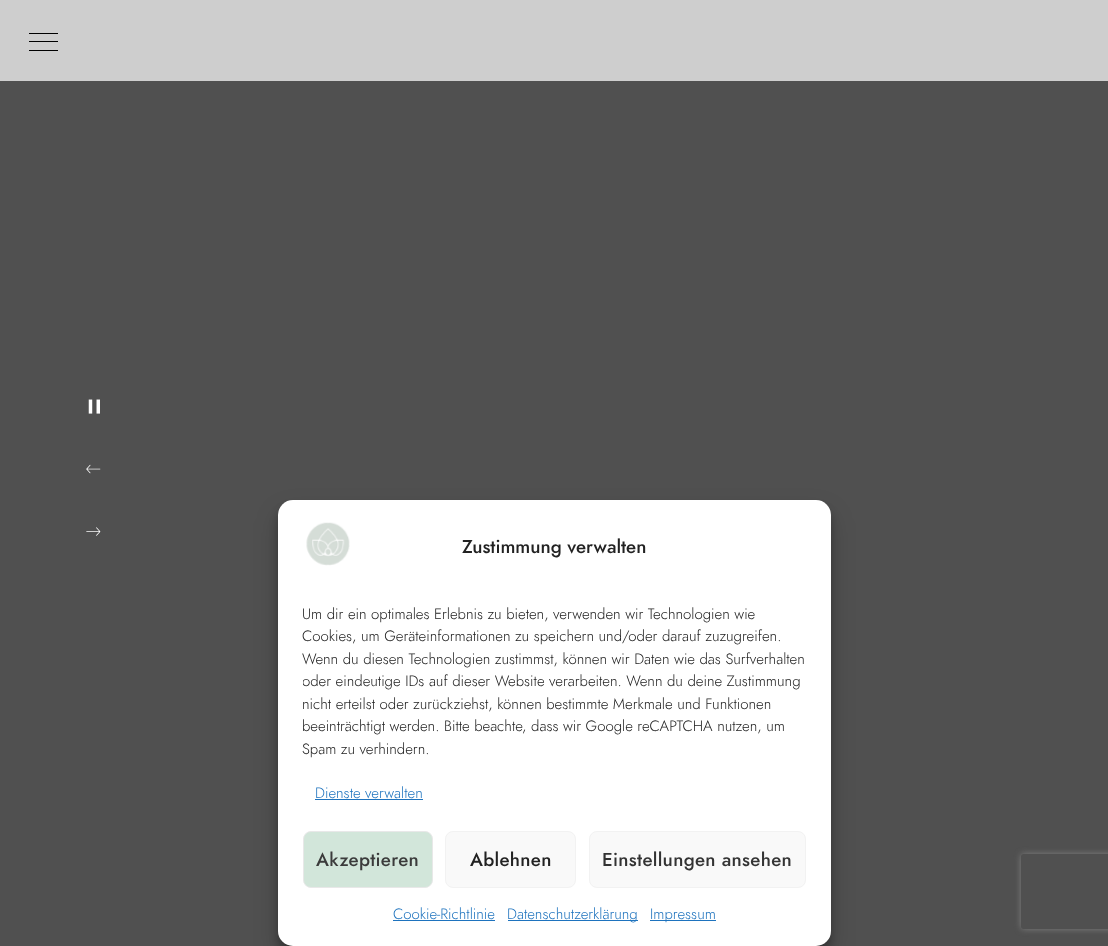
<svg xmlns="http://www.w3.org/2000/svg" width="1108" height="946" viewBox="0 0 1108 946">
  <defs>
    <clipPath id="clip1"><path d="M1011 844H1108V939H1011ZM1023.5 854H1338.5C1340 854 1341 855 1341 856.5V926.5C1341 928 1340 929 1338.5 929H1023.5C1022 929 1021 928 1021 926.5V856.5C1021 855 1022 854 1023.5 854Z" clip-rule="evenodd"/></clipPath>
    <clipPath id="clip2"><path d="M303 603h503v163H303z"/></clipPath>
  </defs>
  <rect width="100%" height="100%" fill="#505050"/>
  <path d="M0 0h1108v81H0z" fill="#cecece"/>
  <path d="M29 41h29v1H29z" fill="#000"/>
  <path d="M29 33h29v1H29z" fill="#000"/>
  <path d="M29 50h29v1H29z" fill="#000"/>
  <image x="88" y="399" width="12" height="15" href="img/1.png"/>
  <image x="86" y="464" width="15" height="10" href="img/2.png"/>
  <image x="86" y="527" width="15" height="9" href="img/3.png"/>
  <rect x="278" y="508" width="553" height="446" rx="15" fill="#0000003b" filter="blur(4px)"/>
  <rect x="278" y="513" width="553" height="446" rx="15" fill="#00000030" filter="blur(12.5px)"/>
  <rect x="278" y="500" width="553" height="446" rx="15" fill="#fff"/>
  <image x="306" y="522" width="44" height="44" href="img/4.png"/>
  <path d="M315 799h108v1H315z" fill="#1e73be"/>
  <rect x="303.5" y="831.5" width="129" height="56" rx="7.5" fill="#d2e6da" stroke="#e8e8e8"/>
  <rect x="445.5" y="831.5" width="130" height="56" rx="7.5" fill="#f9f9f9" stroke="#f2f2f2"/>
  <rect x="589.5" y="831.5" width="216" height="56" rx="7.5" fill="#f9f9f9" stroke="#f2f2f2"/>
  <path d="M393 920h102v1H393z" fill="#1e73be"/>
  <path d="M508 920h130v1H508z" fill="#1e73be"/>
  <path d="M650 920h66v1H650z" fill="#1e73be"/>
  <g clip-path="url(#clip1)">
    <rect x="1021" y="854" width="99" height="75" rx="2.5" fill="#808080" filter="blur(3px)"/>
  </g>
  <text x="462" y="553" font-family="Jost" font-size="18.75" font-weight="500" fill="#222">Zustimmung verwalten</text>
  <g font-family="Jost" font-size="15" font-weight="300" fill="#222">
    <text x="302" y="619">Um dir ein optimales Erlebnis zu bieten, verwenden wir Technologien wie</text>
    <text x="302" y="641">Cookies, um Geräteinformationen zu speichern und/oder darauf zuzugreifen.</text>
    <text x="302" y="664">Wenn du diesen Technologien zustimmst, können wir Daten wie das Surfverhalten</text>
  </g>
  <g clip-path="url(#clip2)">
    <text x="302" y="686" font-family="Jost" font-size="15" font-weight="300" fill="#222">oder eindeutige IDs auf dieser Website verarbeiten. Wenn du deine Zustimmung</text>
  </g>
  <g font-family="Jost" font-size="15" font-weight="300" fill="#222">
    <text x="302" y="709">nicht erteilst oder zurückziehst, können bestimmte Merkmale und Funktionen</text>
    <text x="302" y="731">beeinträchtigt werden. Bitte beachte, dass wir Google reCAPTCHA nutzen, um</text>
    <text x="302" y="754">Spam zu verhindern.</text>
  </g>
  <text x="315" y="798" font-family="Jost" font-size="15" font-weight="300" fill="#1e73be">Dienste verwalten</text>
  <text x="316" y="866" font-family="Jost" font-size="18.75" font-weight="500" letter-spacing="0.3" fill="#3b3b3b">Akzeptieren</text>
  <text x="470" y="866" font-family="Jost" font-size="18.75" font-weight="500" letter-spacing="0.3" fill="#222">Ablehnen</text>
  <text x="602" y="866" font-family="Jost" font-size="18.75" font-weight="500" letter-spacing="0.3" fill="#333">Einstellungen ansehen</text>
  <g font-family="Jost" font-size="15" font-weight="300" fill="#1e73be">
    <text x="393" y="919">Cookie-Richtlinie</text>
    <text x="507" y="919">Datenschutzerklärung</text>
    <text x="650" y="919">Impressum</text>
  </g>
</svg>
